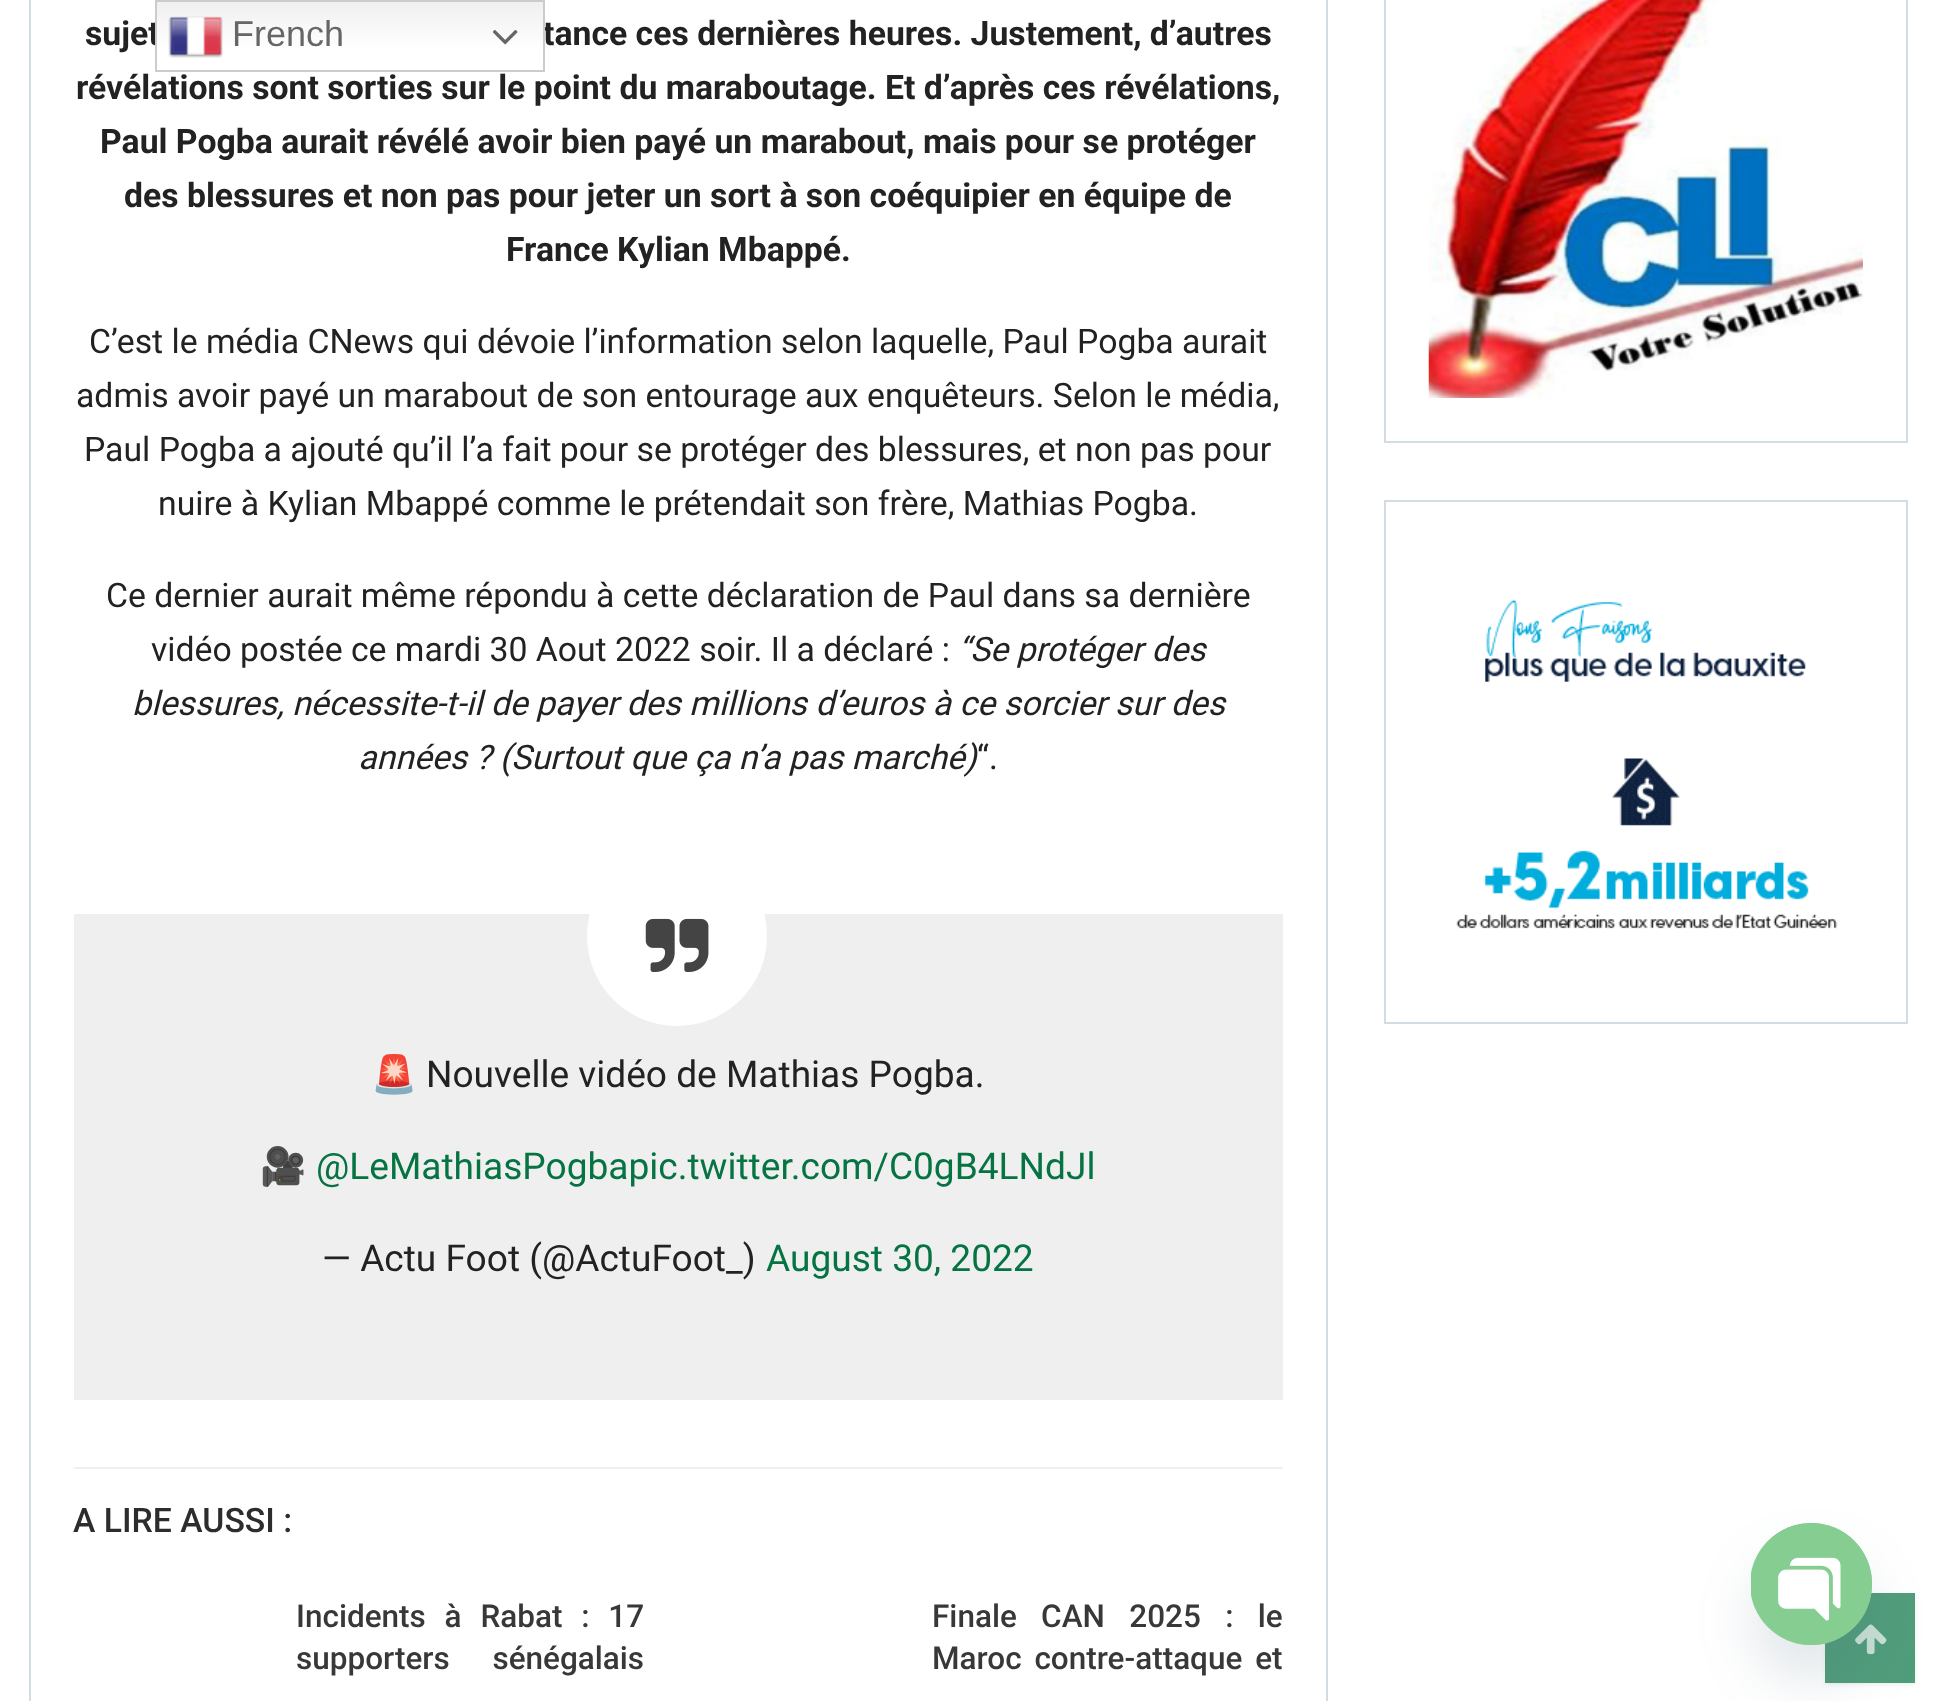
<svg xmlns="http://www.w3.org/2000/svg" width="1936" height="1701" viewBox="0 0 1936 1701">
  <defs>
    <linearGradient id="g1" gradientUnits="userSpaceOnUse" x1="350" y1="0" x2="350" y2="72"><stop offset="0" stop-color="#efefef"/><stop offset="0.7" stop-color="#fff"/></linearGradient>
  </defs>
  <rect width="100%" height="100%" fill="#fff"/>
  <path d="M30 -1h1297v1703H30z" fill="none" stroke="#d2dce3" stroke-width="2"/>
  <path d="M74 914h1209v486H74z" fill="#efefef"/>
  <circle cx="677" cy="936" r="90" fill="#fff"/>
  <image x="645" y="918" width="64" height="54" href="img/1.png"/>
  <path d="M74 1467h1209v2H74z" fill="#f0f0f0"/>
  <path d="M1385 -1h522v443H1385z" fill="none" stroke="#d2dce3" stroke-width="2"/>
  <image x="1428" y="0" width="435" height="398" href="img/2.png"/>
  <path d="M1385 501h522v522H1385z" fill="none" stroke="#d2dce3" stroke-width="2"/>
  <image x="1456" y="599" width="382" height="330" href="img/3.png"/>
  <path d="M1825 1595h90v90H1825z" fill="#4d4d4d17" filter="blur(2px)"/>
  <path d="M1825 1593h90v90H1825z" fill="#509d7b"/>
  <image x="1855" y="1624" width="32" height="31" href="img/7.png"/>
  <rect x="1751" y="1559" width="121" height="122" rx="60.5" fill="#49687e29" filter="blur(27px)"/>
  <rect x="1751" y="1523" width="121" height="122" rx="60.5" fill="#86cd91"/>
  <image x="1751" y="1523" width="121" height="122" href="img/6.png"/>
  <g font-family="Roboto" font-size="33.75" font-weight="bold" fill="#222">
    <text x="85" y="45">sujet</text>
    <text x="543" y="45">tance ces dernières heures. Justement, d’autres</text>
    <text x="76" y="99">révélations sont sorties sur le point du maraboutage. Et d’après ces révélations,</text>
    <text x="100" y="153">Paul Pogba aurait révélé avoir bien payé un marabout, mais pour se protéger</text>
    <text x="124" y="207">des blessures et non pas pour jeter un sort à son coéquipier en équipe de</text>
    <text x="506" y="261">France Kylian Mbappé.</text>
  </g>
  <g font-family="Roboto" font-size="33.75" fill="#222">
    <text x="89" y="353">C’est le média CNews qui dévoie l’information selon laquelle, Paul Pogba aurait</text>
    <text x="76" y="407">admis avoir payé un marabout de son entourage aux enquêteurs. Selon le média,</text>
    <text x="84" y="461">Paul Pogba a ajouté qu’il l’a fait pour se protéger des blessures, et non pas pour</text>
    <text x="158" y="515">nuire à Kylian Mbappé comme le prétendait son frère, Mathias Pogba.</text>
    <text x="106" y="607">Ce dernier aurait même répondu à cette déclaration de Paul dans sa dernière</text>
    <text x="151" y="661">vidéo postée ce mardi 30 Aout 2022 soir. Il a déclaré :</text>
  </g>
  <g font-family="Roboto" font-size="33.75" font-style="italic" fill="#222">
    <text x="958" y="661">“Se protéger des</text>
    <text x="132" y="715">blessures, nécessite-t-il de payer des millions d’euros à ce sorcier sur des</text>
    <text x="358" y="769">années ? (Surtout que ça n’a pas marché)</text>
  </g>
  <text x="977" y="769" font-family="Roboto" font-size="33.75" fill="#222">“.</text>
  <text x="371" y="1087" font-family="Noto Color Emoji" font-size="37.1" fill="#222">🚨</text>
  <text x="426" y="1087" font-family="Roboto" font-size="37.1" fill="#222">Nouvelle vidéo de Mathias Pogba.</text>
  <text x="260" y="1179" font-family="Noto Color Emoji" font-size="37.1" fill="#222">🎥</text>
  <text x="316" y="1179" font-family="Roboto" font-size="37.1" fill="#057342">@LeMathiasPogbapic.twitter.com/C0gB4LNdJl</text>
  <text x="322" y="1271" font-family="Roboto" font-size="37.1" fill="#222">— Actu Foot (@ActuFoot_)</text>
  <text x="766" y="1271" font-family="Roboto" font-size="37.1" fill="#057342">August 30, 2022</text>
  <text x="73" y="1532" font-family="Roboto" font-size="33.75" font-weight="500" fill="#2d2d2d">A LIRE AUSSI :</text>
  <g font-family="Roboto" font-size="31.5" font-weight="500" fill="#383838">
    <text x="296" y="1627" word-spacing="11">Incidents à Rabat : 17</text>
    <text x="296" y="1669" word-spacing="35">supporters sénégalais</text>
    <text x="932" y="1627" word-spacing="16.5">Finale CAN 2025 : le</text>
    <text x="932" y="1669" word-spacing="5">Maroc contre-attaque et</text>
  </g>
  <path d="M157 2h386v44H157z" fill="url(#g1)"/>
  <path d="M156 1h388v70H156z" fill="none" stroke="#ccc" stroke-width="2"/>
  <image x="168" y="16" width="55" height="42" href="img/4.png"/>
  <text x="232" y="46" font-family="Liberation Sans" font-size="36" fill="#666">French</text>
  <image x="493" y="30" width="25" height="15" href="img/5.png"/>
</svg>
